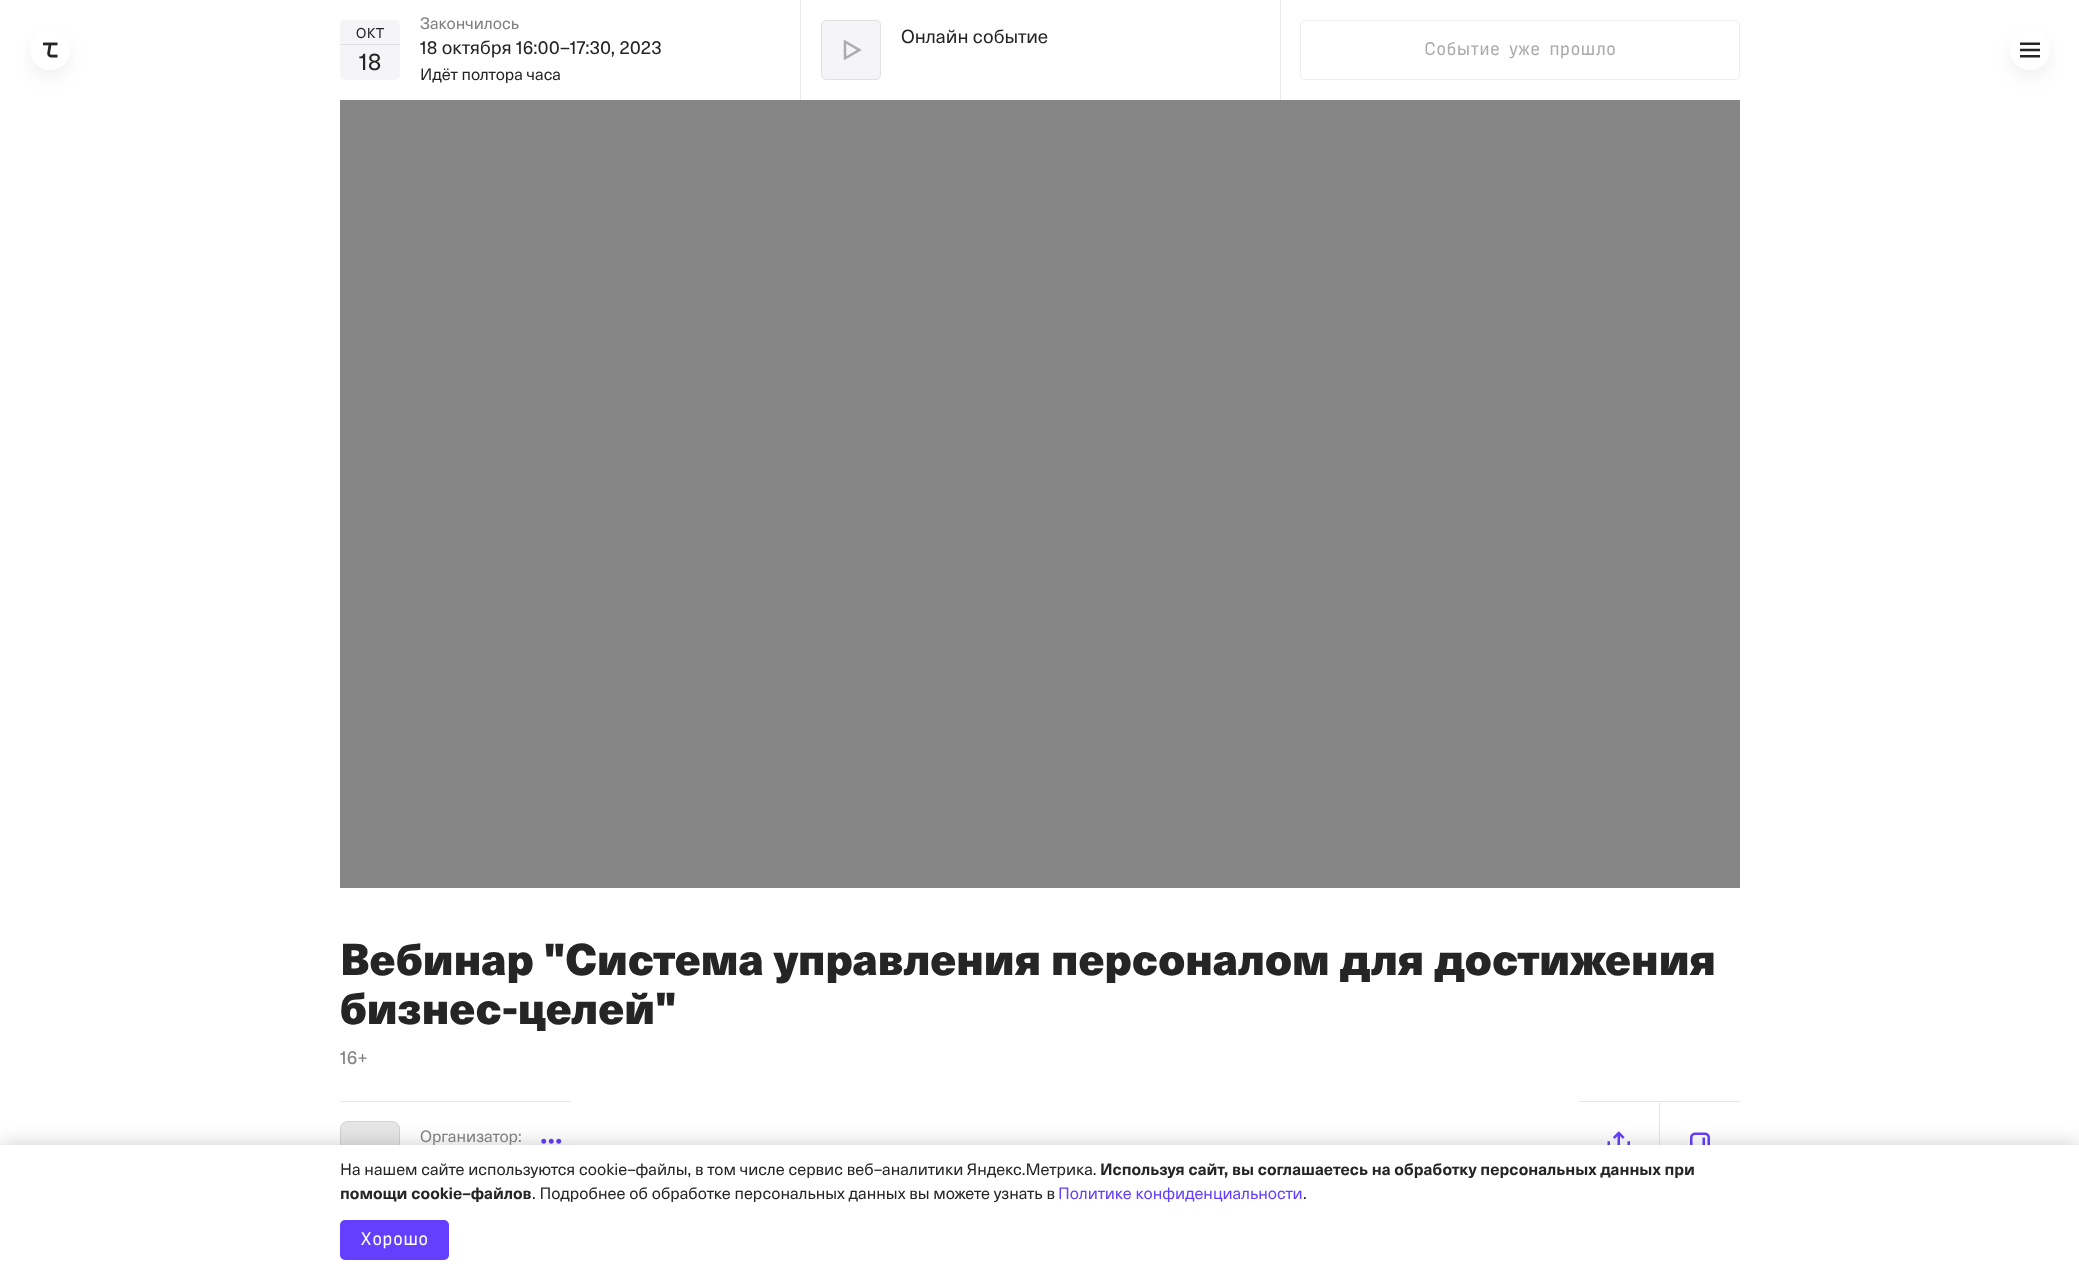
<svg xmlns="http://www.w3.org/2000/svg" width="2079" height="1280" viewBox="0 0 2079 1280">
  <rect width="100%" height="100%" fill="#fff"/>
  <rect x="30" y="38" width="40" height="40" rx="20" fill="#0000000f" filter="blur(9px)"/>
  <circle cx="50" cy="50" r="20" fill="#fff"/>
  <image x="43" y="42" width="15" height="16" href="img/1.png"/>
  <rect x="2010" y="38" width="40" height="40" rx="20" fill="#0000000f" filter="blur(9px)"/>
  <circle cx="2030" cy="50" r="20" fill="#fff"/>
  <image x="2020" y="42" width="20" height="16" href="img/2.png"/>
  <rect x="340" y="20" width="60" height="60" rx="5" fill="#f5f5f8"/>
  <path d="M340 44h60v1H340z" fill="#e1e1e4"/>
  <path d="M800 0h1v100H800z" fill="#e9e9e9"/>
  <rect x="821" y="20" width="60" height="60" rx="5" fill="#f5f5f8"/>
  <rect x="821.5" y="20.5" width="59" height="59" rx="4.5" fill="none" stroke="#92929233"/>
  <image x="843" y="40" width="19" height="20" href="img/3.png"/>
  <path d="M1280 0h1v100H1280z" fill="#e9e9e9"/>
  <rect x="1300.5" y="20.5" width="439" height="59" rx="4.5" fill="none" stroke="#eeeef3"/>
  <path d="M340 100h1400v788H340z" fill="#868686"/>
  <path d="M340 1101h231v1H340z" fill="#e9e9e9"/>
  <rect x="340" y="1121" width="60" height="60" rx="8" fill="#e6e6e6"/>
  <rect x="340.5" y="1121.5" width="59" height="59" rx="7.5" fill="none" stroke="#80808033"/>
  <image x="541" y="1138" width="21" height="6" href="img/4.png"/>
  <path d="M1579 1101h161v1H1579z" fill="#e6e6e6"/>
  <path d="M1659 1103h1v42H1659z" fill="#e6e6e6"/>
  <image x="1607" y="1131" width="23" height="14" href="img/5.png"/>
  <image x="1690" y="1132" width="20" height="13" href="img/6.png"/>
  <path d="M0 1145h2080v135H0z" fill="#00000033" filter="blur(10px)"/>
  <path d="M0 1145h2079v135H0z" fill="#fff"/>
  <rect x="340" y="1220" width="109" height="40" rx="5" fill="#643fff"/>
  <text x="356" y="38" font-family="'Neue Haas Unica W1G'" font-size="14" letter-spacing="0.5" fill="#252525">ОКТ</text>
  <text x="359" y="70" font-family="'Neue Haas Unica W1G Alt'" font-size="24" fill="#252525">18</text>
  <text x="420" y="29" font-family="'Neue Haas Unica W1G'" font-size="16.25" fill="#808080">Закончилось</text>
  <text x="420" y="54" font-family="'Neue Haas Unica W1G Alt'" font-size="18.75" fill="#252525">18 октября 16:00–17:30, 2023</text>
  <text x="420" y="80" font-family="'Neue Haas Unica W1G'" font-size="16.25" fill="#252525">Идёт полтора часа</text>
  <text x="901" y="43" font-family="'Neue Haas Unica W1G'" font-size="18.75" fill="#252525">Онлайн событие</text>
  <text x="1424" y="55" font-family="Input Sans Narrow" font-size="17.5" fill="#aaa">Событие уже прошло</text>
  <g font-family="'Neue Haas Unica W1G'" font-size="43.75" font-weight="900" fill="#252525">
    <text x="340" y="975">Вебинар "Система управления персоналом для достижения</text>
    <text x="340" y="1024">бизнес-целей"</text>
  </g>
  <text x="340" y="1064" font-family="'Neue Haas Unica W1G Alt'" font-size="18.75" fill="#808080">16+</text>
  <text x="420" y="1142" font-family="'Neue Haas Unica W1G'" font-size="16.25" fill="#808080">Организатор:</text>
  <text x="340" y="1175" font-family="'Neue Haas Unica W1G'" font-size="16.25" fill="#252525">На нашем сайте используются cookie–файлы, в том числе сервис веб–аналитики Яндекс.Метрика.</text>
  <g font-family="'Neue Haas Unica W1G'" font-size="16.25" font-weight="bold" fill="#252525">
    <text x="1100" y="1175">Используя сайт, вы соглашаетесь на обработку персональных данных при</text>
    <text x="340" y="1199">помощи cookie–файлов</text>
  </g>
  <text x="532" y="1199" font-family="'Neue Haas Unica W1G'" font-size="16.25" fill="#252525">. Подробнее об обработке персональных данных вы можете узнать в</text>
  <text x="1058" y="1199" font-family="'Neue Haas Unica W1G'" font-size="16.25" fill="#643fff">Политике конфиденциальности</text>
  <text x="1303" y="1199" font-family="'Neue Haas Unica W1G'" font-size="16.25" fill="#252525">.</text>
  <text x="360" y="1245" font-family="Input Sans Narrow" font-size="17.5" fill="#fff">Хорошо</text>
</svg>
